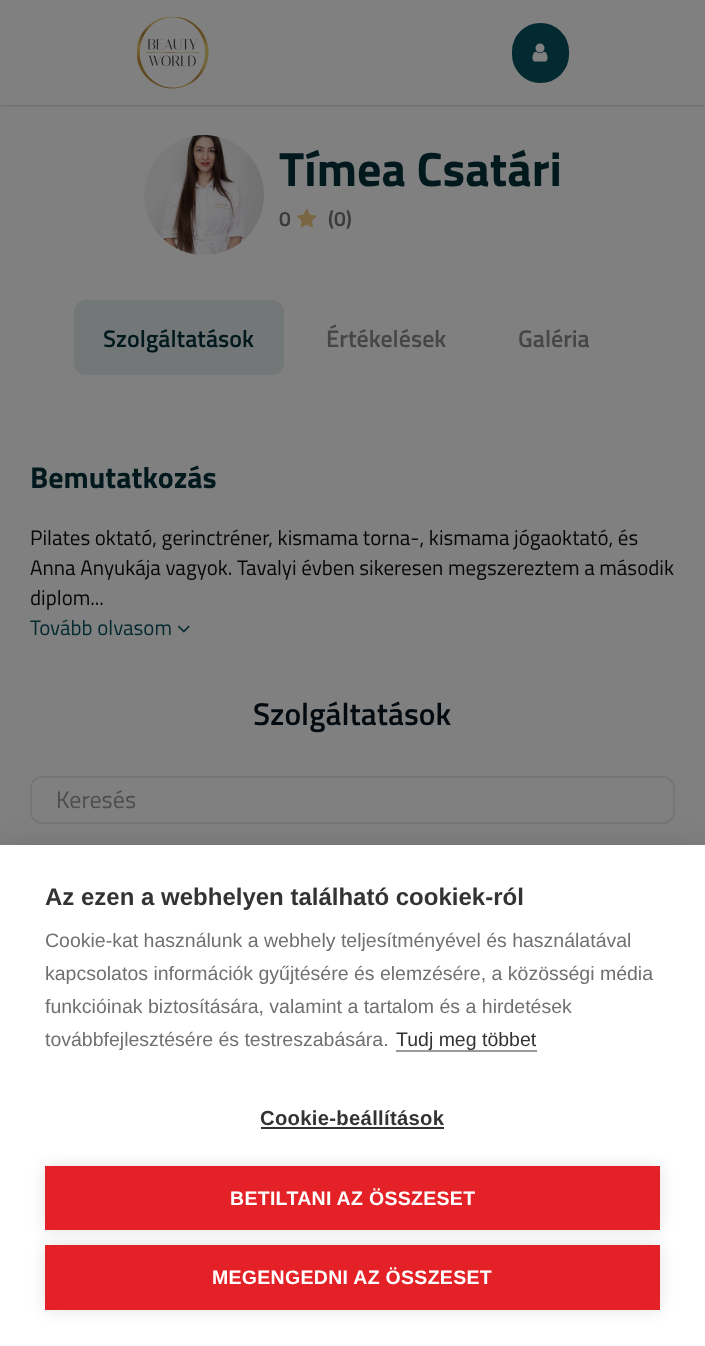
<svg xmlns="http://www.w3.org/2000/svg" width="705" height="1346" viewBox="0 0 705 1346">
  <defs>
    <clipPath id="clip1"><path d="M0 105h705v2H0z"/></clipPath>
  </defs>
  <rect width="100%" height="100%" fill="#808080"/>
  <g clip-path="url(#clip1)">
    <path d="M0 0h705v105H0z" fill="#00000054" filter="blur(1.5px)"/>
  </g>
  <image x="137" y="17" width="72" height="72" href="img/1.png"/>
  <rect x="513.5" y="24.5" width="54" height="57" rx="27" fill="#022a30" stroke="#022a30" stroke-width="3"/>
  <image x="532" y="43" width="16" height="19" href="img/2.png"/>
  <image x="144" y="135" width="120" height="120" href="img/3.png"/>
  <image x="297" y="208" width="20" height="20" href="img/4.png"/>
  <rect x="74" y="300" width="210" height="75" rx="12" fill="#737778"/>
  <image x="177" y="625" width="13" height="8" href="img/5.png"/>
  <rect x="31" y="777" width="643" height="46" rx="11" fill="none" stroke="#737778" stroke-width="2"/>
  <path d="M0 845h705v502H0z" fill="#0000001a" filter="blur(15px)"/>
  <path d="M0 845h705v501H0z" fill="#fff"/>
  <path d="M396 1050h141v2H396z" fill="#999"/>
  <path d="M261 1127h183v2H261z" fill="#333"/>
  <path d="M45 1166h615v64H45z" fill="#0000001f" filter="blur(7.5px)"/>
  <path d="M45 1166h615v64H45z" fill="#e42127"/>
  <path d="M45 1245h615v65H45z" fill="#0000001f" filter="blur(7.5px)"/>
  <path d="M45 1245h615v65H45z" fill="#e42127"/>
  <text x="279" y="186" font-family="Titillium Web" font-size="48" font-weight="bold" fill="#01191d">Tímea Csatári</text>
  <g font-family="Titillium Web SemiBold" font-size="21" font-weight="600" fill="#3a3a3a">
    <text x="279" y="226">0</text>
    <text x="328" y="226">(0)</text>
  </g>
  <text x="103" y="347" font-family="Titillium Web SemiBold" font-size="24" font-weight="600" fill="#01191d">Szolgáltatások</text>
  <g font-family="Titillium Web SemiBold" font-size="24" font-weight="600" fill="#464646">
    <text x="326" y="347">Értékelések</text>
    <text x="518" y="347">Galéria</text>
  </g>
  <text x="30" y="488" font-family="Titillium Web" font-size="30" font-weight="bold" fill="#01191d">Bemutatkozás</text>
  <g font-family="Titillium Web" font-size="21" fill="#070707">
    <text x="30" y="545">Pilates oktató, gerinctréner, kismama torna-, kismama jógaoktató, és</text>
    <text x="30" y="575">Anna Anyukája vagyok. Tavalyi évben sikeresen megszereztem a második</text>
    <text x="30" y="605">diplom...</text>
  </g>
  <text x="30" y="635" font-family="Titillium Web" font-size="21" fill="#022a30">Tovább olvasom</text>
  <text x="253" y="725" font-family="Titillium Web SemiBold" font-size="31.5" font-weight="600" fill="#02090f">Szolgáltatások</text>
  <text x="56" y="808" font-family="Titillium Web" font-size="24" fill="#4d4d4d">Keresés</text>
  <text x="45" y="905" font-family="Liberation Sans" font-size="24" font-weight="bold" fill="#333">Az ezen a webhelyen található cookiek-ról</text>
  <g font-family="Liberation Sans" font-size="19.5" fill="#707070">
    <text x="45" y="947">Cookie-kat használunk a webhely teljesítményével és használatával</text>
    <text x="45" y="980">kapcsolatos információk gyűjtésére és elemzésére, a közösségi média</text>
    <text x="45" y="1013">funkcióinak biztosítására, valamint a tartalom és a hirdetések</text>
    <text x="45" y="1046">továbbfejlesztésére és testreszabására.</text>
  </g>
  <text x="396" y="1046" font-family="Liberation Sans" font-size="19.5" fill="#333">Tudj meg többet</text>
  <text x="260" y="1125" font-family="Liberation Sans" font-size="20.25" font-weight="bold" letter-spacing="0.3" fill="#333">Cookie-beállítások</text>
  <g font-family="Liberation Sans" font-size="19.5" font-weight="bold" letter-spacing="0.3" fill="#fff">
    <text x="230" y="1205">BETILTANI AZ ÖSSZESET</text>
    <text x="212" y="1284">MEGENGEDNI AZ ÖSSZESET</text>
  </g>
</svg>
